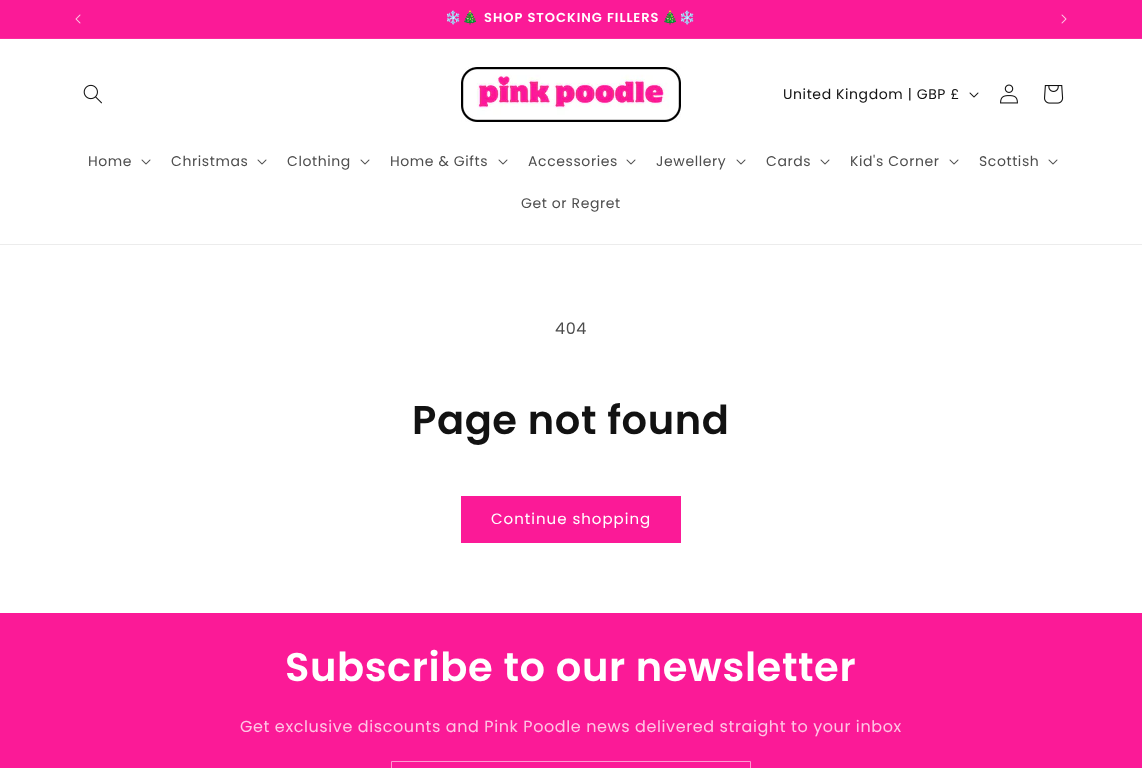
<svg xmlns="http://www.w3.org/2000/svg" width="1142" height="768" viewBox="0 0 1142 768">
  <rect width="100%" height="100%" fill="#fff"/>
  <path d="M0 0h1142v38H0z" fill="#fb1a97"/>
  <path d="M0 38h1142v1H0z" fill="#fb2c9f"/>
  <image x="75" y="14" width="6" height="10" href="img/1.png"/>
  <image x="1061" y="14" width="6" height="10" href="img/2.png"/>
  <path d="M0 244h1142v1H0z" fill="#ececec"/>
  <image x="83" y="84" width="19" height="20" href="img/3.png"/>
  <image x="461" y="67" width="220" height="55" href="img/4.png"/>
  <image x="969" y="92" width="10" height="6" href="img/5.png"/>
  <image x="1000" y="84" width="18" height="20" href="img/6.png"/>
  <image x="1044" y="85" width="20" height="19" href="img/7.png"/>
  <image x="141" y="159" width="10" height="6" href="img/8.png"/>
  <image x="257" y="159" width="10" height="6" href="img/8.png"/>
  <image x="360" y="159" width="10" height="6" href="img/8.png"/>
  <image x="498" y="159" width="10" height="6" href="img/8.png"/>
  <image x="626" y="159" width="10" height="6" href="img/8.png"/>
  <image x="736" y="159" width="10" height="6" href="img/8.png"/>
  <image x="820" y="159" width="10" height="6" href="img/8.png"/>
  <image x="949" y="159" width="10" height="6" href="img/8.png"/>
  <image x="1048" y="159" width="10" height="6" href="img/8.png"/>
  <path d="M461 496h220v47H461z" fill="#fb1a97"/>
  <path d="M0 613h1142v155H0z" fill="#fb1a97"/>
  <path d="M391.5 761.5h359v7H391.5z" fill="none" stroke="#fd98d0"/>
  <text x="445" y="22" font-family="Noto Color Emoji" font-size="13" font-weight="bold" letter-spacing="1" fill="#fff">❄️🎄</text>
  <text x="484" y="22" font-family="Poppins" font-size="13" font-weight="600" letter-spacing="1" fill="#fff">SHOP STOCKING FILLERS</text>
  <text x="662" y="22" font-family="Noto Color Emoji" font-size="13" font-weight="bold" letter-spacing="1" fill="#fff">🎄❄️</text>
  <text x="783" y="99" font-family="Poppins" font-size="14" letter-spacing="0.6" fill="#121212">United Kingdom | GBP £</text>
  <g font-family="Poppins" font-size="14" letter-spacing="0.6" fill="#4d4d4d">
    <text x="88" y="166">Home</text>
    <text x="171" y="166">Christmas</text>
    <text x="287" y="166">Clothing</text>
    <text x="390" y="166">Home &amp; Gifts</text>
    <text x="528" y="166">Accessories</text>
    <text x="656" y="166">Jewellery</text>
    <text x="766" y="166">Cards</text>
    <text x="850" y="166">Kid's Corner</text>
    <text x="979" y="166">Scottish</text>
    <text x="521" y="208">Get or Regret</text>
  </g>
  <text x="555" y="334" font-family="Poppins" font-size="16" letter-spacing="0.6" fill="#4d4d4d">404</text>
  <text x="412" y="434" font-family="Poppins" font-size="40" font-weight="600" letter-spacing="0.6" fill="#121212">Page not found</text>
  <text x="491" y="524" font-family="Poppins" font-size="15" letter-spacing="1" fill="#fff">Continue shopping</text>
  <text x="285" y="681" font-family="Poppins" font-size="40" font-weight="600" letter-spacing="0.6" fill="#fff">Subscribe to our newsletter</text>
  <text x="240" y="732" font-family="Poppins" font-size="16" letter-spacing="0.6" fill="#fec6e5">Get exclusive discounts and Pink Poodle news delivered straight to your inbox</text>
</svg>
